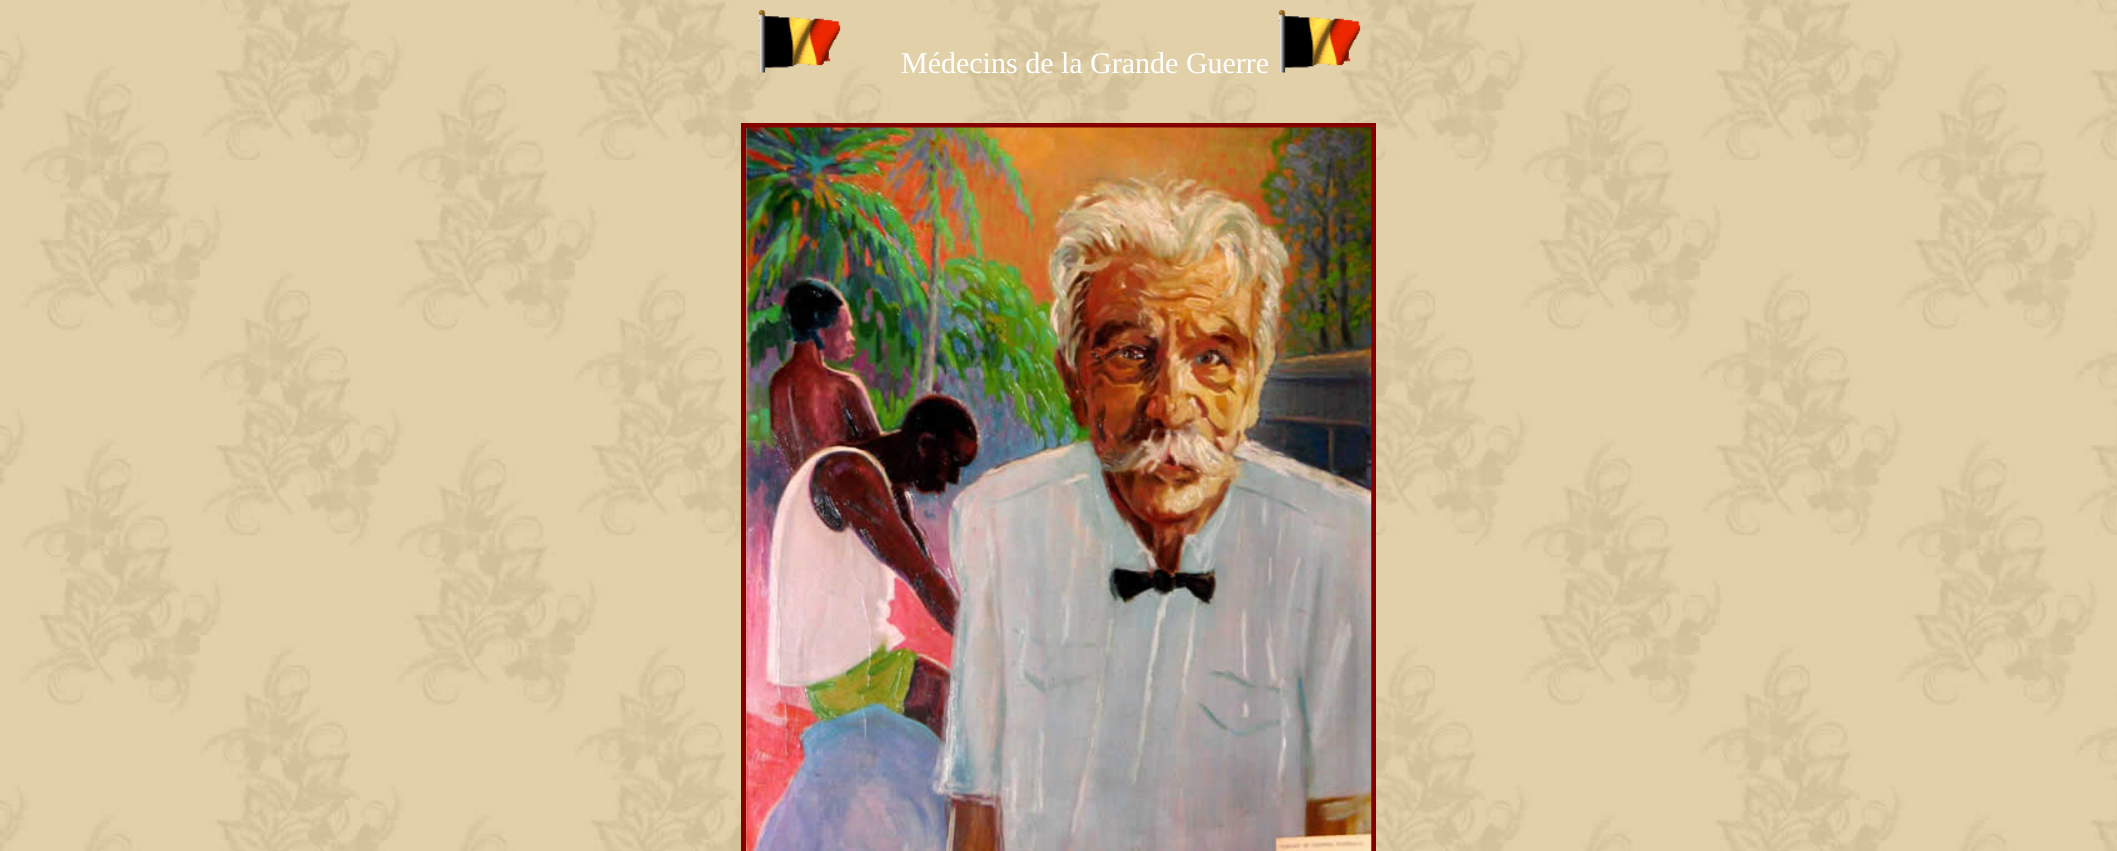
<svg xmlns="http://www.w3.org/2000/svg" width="2117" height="851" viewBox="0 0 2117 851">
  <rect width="100%" height="100%" fill="#fff"/>
  <image x="0" y="0" width="2117" height="851" href="img/1.png"/>
  <image x="758" y="10" width="83" height="63" href="img/2.png"/>
  <image x="1278" y="10" width="83" height="63" href="img/3.png"/>
  <path d="M743.5 125.5h630v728H743.5z" fill="none" stroke="#840000" stroke-width="5"/>
  <image x="746" y="127" width="626" height="724" href="img/4.png"/>
  <text x="901" y="73" font-family="Liberation Serif" font-size="30" fill="#fff">Médecins de la Grande Guerre</text>
</svg>
